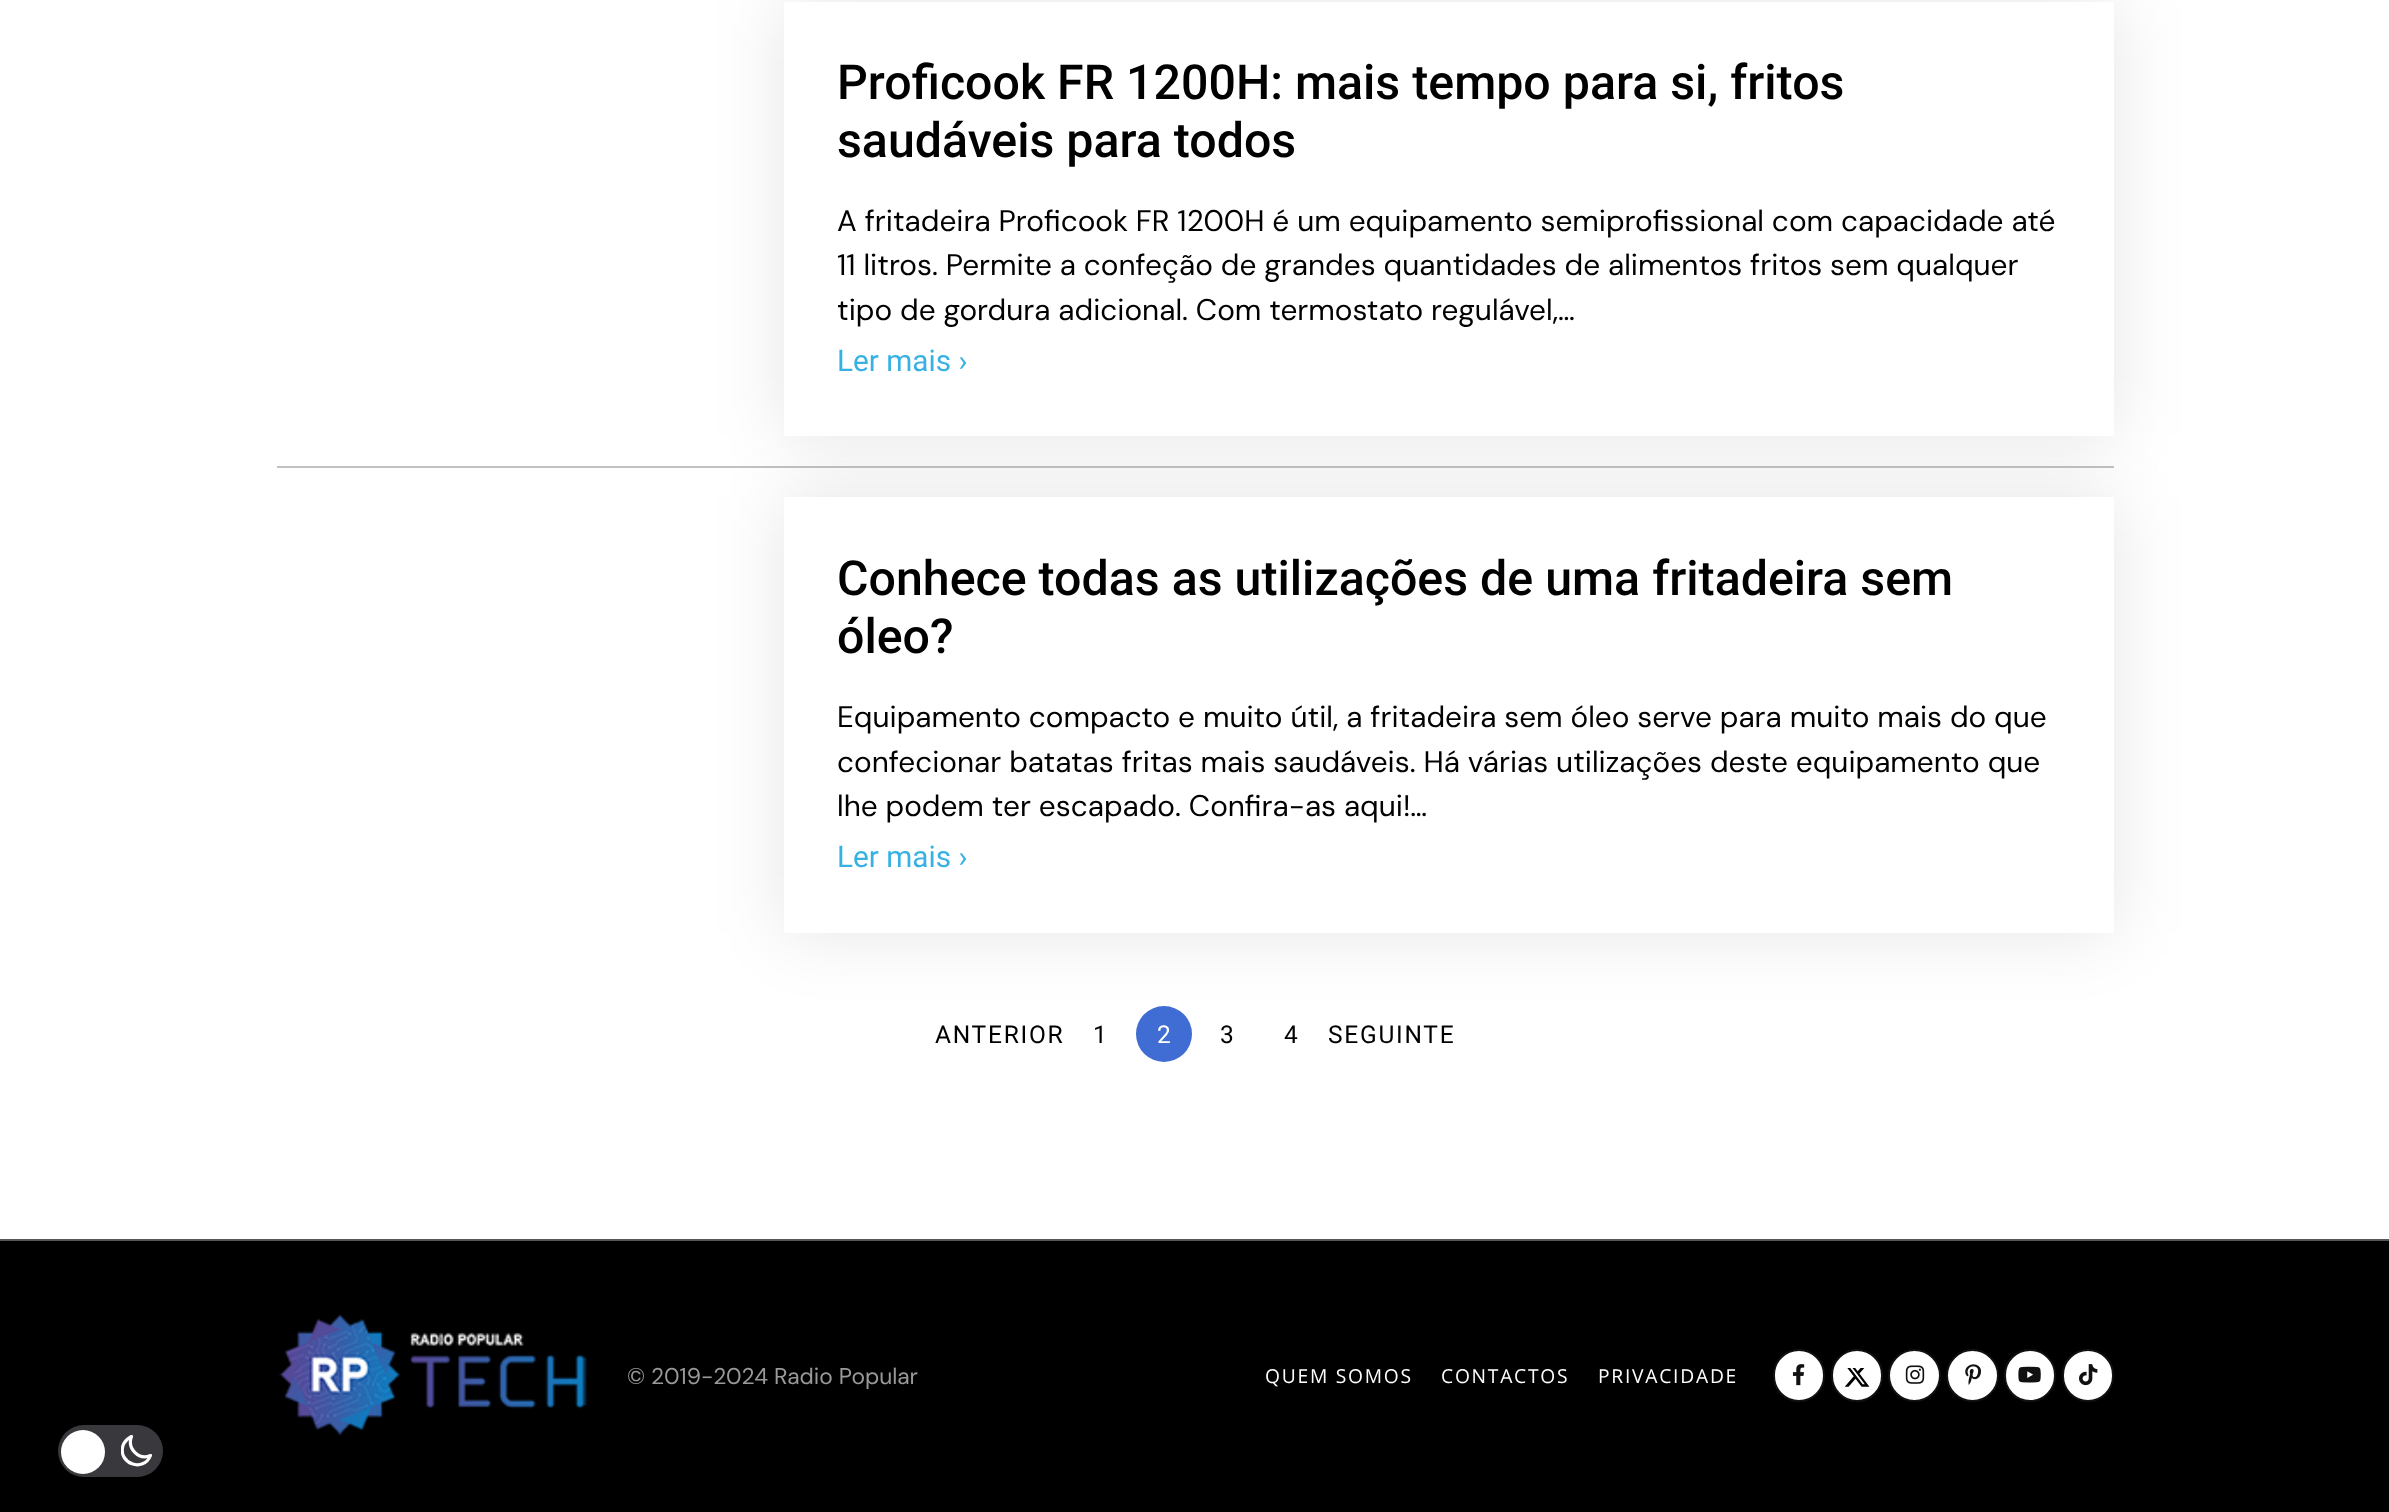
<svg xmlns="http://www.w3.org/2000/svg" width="2389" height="1512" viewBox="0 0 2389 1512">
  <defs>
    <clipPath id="clip1"><path d="M121 1435h31v32H121z"/></clipPath>
  </defs>
  <rect width="100%" height="100%" fill="#fff"/>
  <path d="M784 2h1330v434H784z" fill="#0000001a" filter="blur(35px)"/>
  <path d="M784 2h1330v434H784z" fill="#fff"/>
  <path d="M277 466h1837v2H277z" fill="#c0c1c0"/>
  <circle cx="1164" cy="1034" r="28" fill="#406dd3"/>
  <path d="M784 497h1330v436H784z" fill="#0000001a" filter="blur(35px)"/>
  <path d="M784 497h1330v436H784z" fill="#fff"/>
  <path d="M0 1241h2389v271H0z" fill="#000"/>
  <path d="M0 1239h2389v2H0z" fill="#555"/>
  <image x="278" y="1314" width="309" height="122" href="img/1.png"/>
  <rect x="1774" y="1350" width="50" height="51" rx="25" fill="#fff" stroke="#111" stroke-width="2"/>
  <image x="1792" y="1364" width="13" height="22" href="img/2.png"/>
  <rect x="1832" y="1350" width="50" height="51" rx="25" fill="#fff" stroke="#111" stroke-width="2"/>
  <image x="1844" y="1368" width="26" height="19" href="img/3.png"/>
  <circle cx="1914.5" cy="1375.5" r="25.5" fill="#fff" stroke="#111" stroke-width="2"/>
  <image x="1905" y="1365" width="20" height="19" href="img/4.png"/>
  <circle cx="1972.5" cy="1375.5" r="25.5" fill="#fff" stroke="#111" stroke-width="2"/>
  <image x="1965" y="1364" width="16" height="21" href="img/5.png"/>
  <rect x="2005" y="1350" width="50" height="51" rx="25" fill="#fff" stroke="#111" stroke-width="2"/>
  <image x="2018" y="1366" width="23" height="17" href="img/6.png"/>
  <rect x="2063" y="1350" width="50" height="51" rx="25" fill="#fff" stroke="#111" stroke-width="2"/>
  <image x="2079" y="1364" width="19" height="22" href="img/7.png"/>
  <rect x="58" y="1425" width="105" height="52" rx="26" fill="#39393d"/>
  <circle cx="83" cy="1452" r="22" fill="#fff"/>
  <g clip-path="url(#clip1)">
    <path d="M150.5 1455.5C138.5 1460.5 127 1448.5 131.5 1436.5C127.5 1438.5 124.5 1441.5 123 1445.5C117.5 1463.5 143.5 1473 150.5 1455.5Z" fill="none" stroke="#fff" stroke-width="3.2" stroke-linecap="round" stroke-linejoin="round"/>
  </g>
  <g font-family="Roboto" font-size="48.3" font-weight="500" fill="#000">
    <text x="837" y="99">Proficook FR 1200H: mais tempo para si, fritos</text>
    <text x="837" y="157">saudáveis para todos</text>
  </g>
  <g font-family="DM Sans" font-size="29.75" fill="#000">
    <text x="837" y="231">A fritadeira Proficook FR 1200H é um equipamento semiprofissional com capacidade até</text>
    <text x="837" y="275">11 litros. Permite a confeção de grandes quantidades de alimentos fritos sem qualquer</text>
    <text x="837" y="320">tipo de gordura adicional. Com termostato regulável,…</text>
  </g>
  <text x="837" y="371" font-family="Roboto" font-size="29.75" fill="#37b1e3">Ler mais ›</text>
  <g font-family="Roboto" font-size="48.3" font-weight="500" fill="#000">
    <text x="837" y="595">Conhece todas as utilizações de uma fritadeira sem</text>
    <text x="837" y="653">óleo?</text>
  </g>
  <g font-family="DM Sans" font-size="29.75" fill="#000">
    <text x="837" y="727">Equipamento compacto e muito útil, a fritadeira sem óleo serve para muito mais do que</text>
    <text x="837" y="772">confecionar batatas fritas mais saudáveis. Há várias utilizações deste equipamento que</text>
    <text x="837" y="816">lhe podem ter escapado. Confira-as aqui!…</text>
  </g>
  <text x="837" y="867" font-family="Roboto" font-size="29.75" fill="#37b1e3">Ler mais ›</text>
  <g font-family="Roboto" font-size="24.5" letter-spacing="1.75" fill="#000">
    <text x="935" y="1043">ANTERIOR</text>
    <text x="1093" y="1043">1</text>
  </g>
  <text x="1157" y="1043" font-family="Roboto" font-size="24.5" letter-spacing="1.75" fill="#fff">2</text>
  <g font-family="Roboto" font-size="24.5" letter-spacing="1.75" fill="#000">
    <text x="1220" y="1043">3</text>
    <text x="1284" y="1043">4</text>
    <text x="1328" y="1043">SEGUINTE</text>
  </g>
  <text x="627" y="1384" font-family="DM Sans" font-size="22.75" fill="#999">© 2019-2024 Radio Popular</text>
  <g font-family="Open Sans" font-size="19.25" letter-spacing="1.75" fill="#fff">
    <text x="1265" y="1383">QUEM SOMOS</text>
    <text x="1441" y="1383">CONTACTOS</text>
    <text x="1598" y="1383">PRIVACIDADE</text>
  </g>
</svg>
